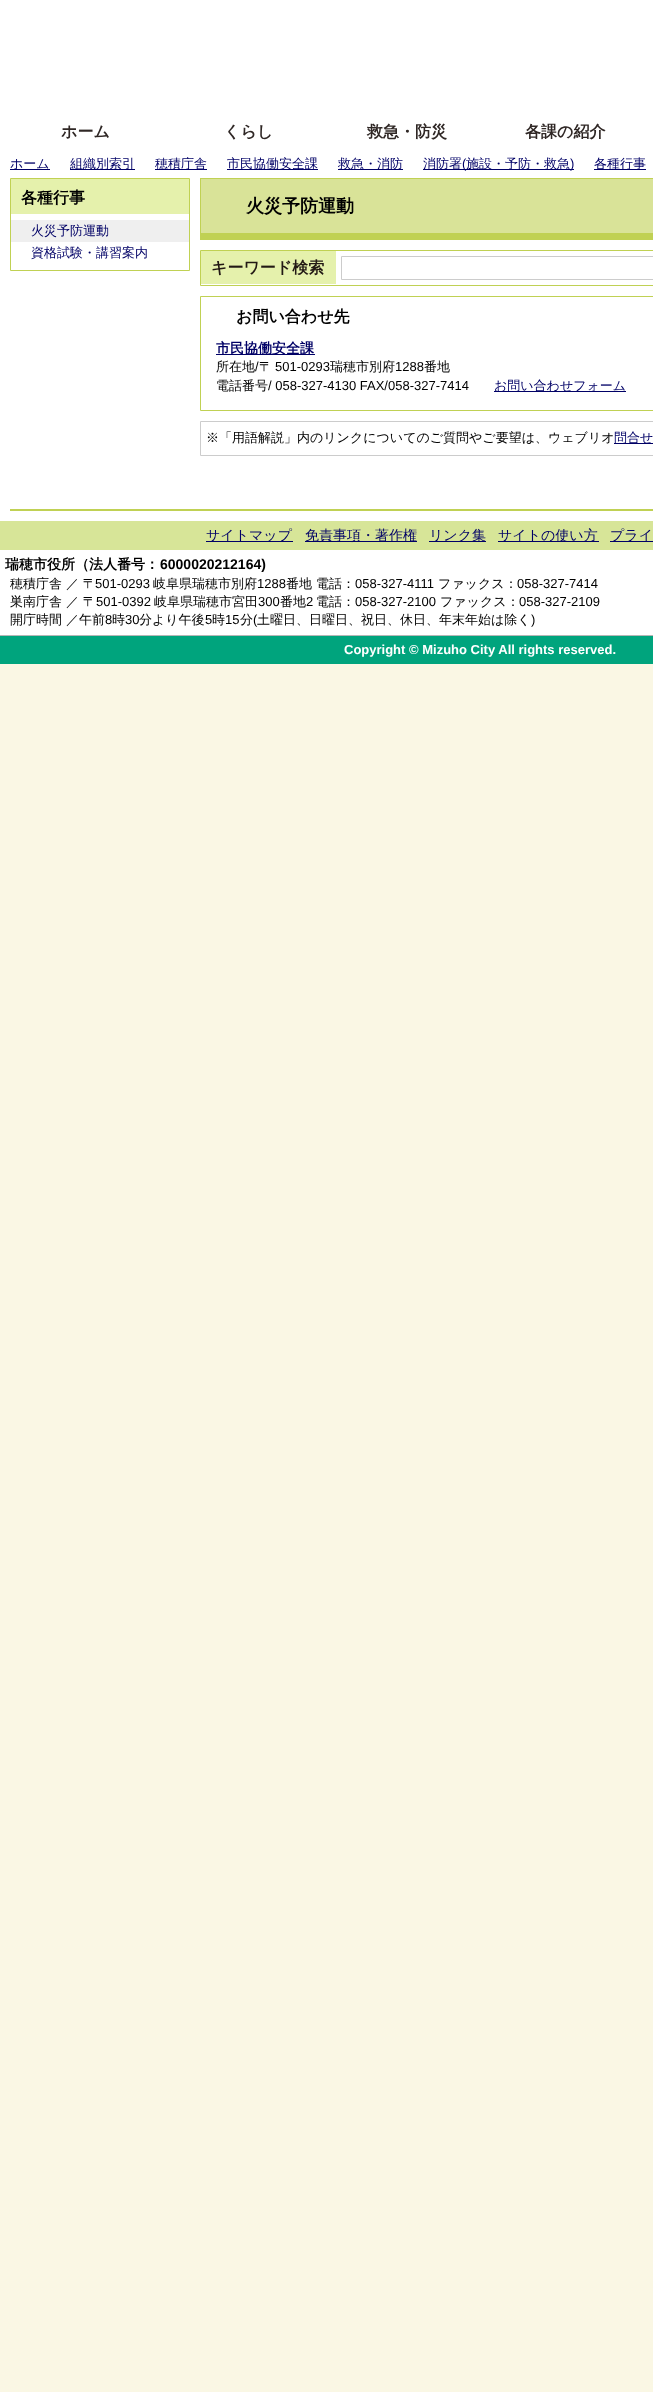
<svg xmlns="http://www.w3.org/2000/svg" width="653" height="2392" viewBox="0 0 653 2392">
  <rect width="100%" height="100%" fill="#faf7e4"/>
  <path d="M0 0h653v635H0z" fill="#fff"/>
  <path d="M10 169h40v1H10z" fill="#006"/>
  <path d="M70 169h65v1H70z" fill="#006"/>
  <path d="M155 169h52v1H155z" fill="#006"/>
  <path d="M227 169h91v1H227z" fill="#006"/>
  <path d="M338 169h65v1H338z" fill="#006"/>
  <path d="M423 169h151v1H423z" fill="#006"/>
  <path d="M594 169h52v1H594z" fill="#006"/>
  <path d="M10.5 178.5h179v92H10.5z" fill="none" stroke="#c0d153"/>
  <path d="M11 179h178v35H11z" fill="#e5f1ac"/>
  <path d="M11 220h178v22H11z" fill="#efefef"/>
  <path d="M200 178h453v1H200z" fill="#c0d153"/>
  <path d="M200 233h453v7H200z" fill="#c0d153"/>
  <path d="M200 178h1v62H200z" fill="#c0d153"/>
  <path d="M201 179h452v54H201z" fill="#d9e398"/>
  <path d="M200.5 250.5h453v35H200.5z" fill="none" stroke="#c0d153"/>
  <path d="M201 251h135v33H201z" fill="#e5f1ac"/>
  <path d="M341.5 256.5h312v23H341.5z" fill="none" stroke="#ccc"/>
  <path d="M200.5 296.5h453v114H200.5z" fill="none" stroke="#c0d153"/>
  <path d="M216 354h99v1H216z" fill="#006"/>
  <path d="M494 391h132v1H494z" fill="#006"/>
  <path d="M200.5 421.5h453v34H200.5z" fill="none" stroke="#ccc"/>
  <path d="M614 443h39v1H614z" fill="#006"/>
  <path d="M10 509h643v2H10z" fill="#c0d153"/>
  <path d="M0 521h653v29H0z" fill="#d7e598"/>
  <path d="M206 541h87v1H206z" fill="#006"/>
  <path d="M305 541h112v1H305z" fill="#006"/>
  <path d="M429 541h57v1H429z" fill="#006"/>
  <path d="M498 541h101v1H498z" fill="#006"/>
  <path d="M610 541h43v1H610z" fill="#006"/>
  <path d="M0 636h653v28H0z" fill="#00a47d"/>
  <path d="M0 635h653v1H0z" fill="#b6b6b6"/>
  <g font-family="WenQuanYi Zen Hei" font-size="16" font-weight="bold" fill="#2f2725">
    <text x="61" y="137">ホーム</text>
    <text x="224" y="137">くらし</text>
    <text x="367" y="137">救急・防災</text>
    <text x="525" y="137">各課の紹介</text>
  </g>
  <g font-family="WenQuanYi Zen Hei" font-size="13" font-weight="500" fill="#006">
    <text x="10" y="168">ホーム</text>
    <text x="70" y="168">組織別索引</text>
    <text x="155" y="168">穂積庁舎</text>
    <text x="227" y="168">市民協働安全課</text>
    <text x="338" y="168">救急・消防</text>
    <text x="423" y="168">消防署</text>
  </g>
  <text x="462" y="168" font-family="Liberation Sans" font-size="13" fill="#006">(</text>
  <text x="466" y="168" font-family="WenQuanYi Zen Hei" font-size="13" font-weight="500" fill="#006">施設・予防・救急</text>
  <text x="570" y="168" font-family="Liberation Sans" font-size="13" fill="#006">)</text>
  <text x="594" y="168" font-family="WenQuanYi Zen Hei" font-size="13" font-weight="500" fill="#006">各種行事</text>
  <text x="21" y="203" font-family="WenQuanYi Zen Hei" font-size="16" font-weight="bold" fill="#000">各種行事</text>
  <g font-family="WenQuanYi Zen Hei" font-size="13" font-weight="500" fill="#006">
    <text x="31" y="235">火災予防運動</text>
    <text x="31" y="257">資格試験・講習案内</text>
  </g>
  <text x="246" y="212" font-family="WenQuanYi Zen Hei" font-size="18" font-weight="bold" fill="#000">火災予防運動</text>
  <text x="211" y="273" font-family="WenQuanYi Zen Hei" font-size="16" font-weight="bold" fill="#221914">キーワード検索</text>
  <text x="236" y="322" font-family="WenQuanYi Zen Hei" font-size="16" font-weight="bold" fill="#000">お問い合わせ先</text>
  <text x="216" y="353" font-family="WenQuanYi Zen Hei" font-size="14" font-weight="bold" fill="#006">市民協働安全課</text>
  <g font-family="WenQuanYi Zen Hei" font-size="13" font-weight="500" fill="#000">
    <text x="216" y="371">所在地 〒</text>
    <text x="330" y="371">瑞穂市別府</text>
    <text x="424" y="371">番地</text>
  </g>
  <g font-family="Liberation Sans" font-size="13" fill="#000">
    <text x="255" y="371">/</text>
    <text x="275" y="371">501-0293</text>
    <text x="395" y="371">1288</text>
  </g>
  <text x="216" y="390" font-family="WenQuanYi Zen Hei" font-size="13" font-weight="500" fill="#000">電話番号</text>
  <text x="268" y="390" font-family="Liberation Sans" font-size="13" fill="#000">/ 058-327-4130 FAX/058-327-7414</text>
  <text x="494" y="390" font-family="WenQuanYi Zen Hei" font-size="13" font-weight="500" fill="#006">お問い合わせフォーム</text>
  <text x="206" y="442" font-family="WenQuanYi Zen Hei" font-size="13" font-weight="500" fill="#000">※「用語解説」内のリンクについてのご質問やご要望は、ウェブリオ</text>
  <text x="614" y="442" font-family="WenQuanYi Zen Hei" font-size="13" font-weight="500" fill="#006">問合せ</text>
  <g font-family="WenQuanYi Zen Hei" font-size="14" font-weight="500" fill="#006">
    <text x="206" y="540">サイトマップ</text>
    <text x="305" y="540">免責事項・著作権</text>
    <text x="429" y="540">リンク集</text>
    <text x="498" y="540">サイトの使い方</text>
    <text x="610" y="540">プライ</text>
  </g>
  <text x="5" y="569" font-family="WenQuanYi Zen Hei" font-size="14" font-weight="bold" fill="#000">瑞穂市役所（法人番号：</text>
  <text x="160" y="569" font-family="Liberation Sans" font-size="14" font-weight="bold" fill="#000">6000020212164)</text>
  <text x="10" y="588" font-family="WenQuanYi Zen Hei" font-size="13" font-weight="500" fill="#000">穂積庁舎 ／ 〒</text>
  <text x="95" y="588" font-family="Liberation Sans" font-size="13" fill="#000">501-0293</text>
  <text x="153" y="588" font-family="WenQuanYi Zen Hei" font-size="13" font-weight="500" fill="#000">岐阜県瑞穂市別府</text>
  <text x="257" y="588" font-family="Liberation Sans" font-size="13" fill="#000">1288</text>
  <text x="286" y="588" font-family="WenQuanYi Zen Hei" font-size="13" font-weight="500" fill="#000">番地 電話：</text>
  <text x="355" y="588" font-family="Liberation Sans" font-size="13" fill="#000">058-327-4111</text>
  <text x="438" y="588" font-family="WenQuanYi Zen Hei" font-size="13" font-weight="500" fill="#000">ファックス：</text>
  <text x="517" y="588" font-family="Liberation Sans" font-size="13" fill="#000">058-327-7414</text>
  <text x="10" y="606" font-family="WenQuanYi Zen Hei" font-size="13" font-weight="500" fill="#000">巣南庁舎 ／ 〒</text>
  <text x="96" y="606" font-family="Liberation Sans" font-size="13" fill="#000">501-0392</text>
  <text x="154" y="606" font-family="WenQuanYi Zen Hei" font-size="13" font-weight="500" fill="#000">岐阜県瑞穂市宮田</text>
  <text x="258" y="606" font-family="Liberation Sans" font-size="13" fill="#000">300</text>
  <text x="280" y="606" font-family="WenQuanYi Zen Hei" font-size="13" font-weight="500" fill="#000">番地</text>
  <text x="306" y="606" font-family="Liberation Sans" font-size="13" fill="#000">2</text>
  <text x="316" y="606" font-family="WenQuanYi Zen Hei" font-size="13" font-weight="500" fill="#000">電話：</text>
  <text x="355" y="606" font-family="Liberation Sans" font-size="13" fill="#000">058-327-2100</text>
  <text x="440" y="606" font-family="WenQuanYi Zen Hei" font-size="13" font-weight="500" fill="#000">ファックス：</text>
  <text x="519" y="606" font-family="Liberation Sans" font-size="13" fill="#000">058-327-2109</text>
  <text x="10" y="624" font-family="WenQuanYi Zen Hei" font-size="13" font-weight="500" fill="#000">開庁時間 ／午前</text>
  <text x="105" y="624" font-family="Liberation Sans" font-size="13" fill="#000">8</text>
  <text x="112" y="624" font-family="WenQuanYi Zen Hei" font-size="13" font-weight="500" fill="#000">時</text>
  <text x="125" y="624" font-family="Liberation Sans" font-size="13" fill="#000">30</text>
  <text x="139" y="624" font-family="WenQuanYi Zen Hei" font-size="13" font-weight="500" fill="#000">分より午後</text>
  <text x="205" y="624" font-family="Liberation Sans" font-size="13" fill="#000">5</text>
  <text x="212" y="624" font-family="WenQuanYi Zen Hei" font-size="13" font-weight="500" fill="#000">時</text>
  <text x="225" y="624" font-family="Liberation Sans" font-size="13" fill="#000">15</text>
  <text x="240" y="624" font-family="WenQuanYi Zen Hei" font-size="13" font-weight="500" fill="#000">分</text>
  <text x="253" y="624" font-family="Liberation Sans" font-size="13" fill="#000">(</text>
  <text x="257" y="624" font-family="WenQuanYi Zen Hei" font-size="13" font-weight="500" fill="#000">土曜日、日曜日、祝日、休日、年末年始は除く</text>
  <text x="531" y="624" font-family="Liberation Sans" font-size="13" fill="#000">)</text>
  <text x="344" y="654" font-family="Liberation Sans" font-size="13" font-weight="bold" fill="#fff">Copyright © Mizuho City All rights reserved.</text>
</svg>
